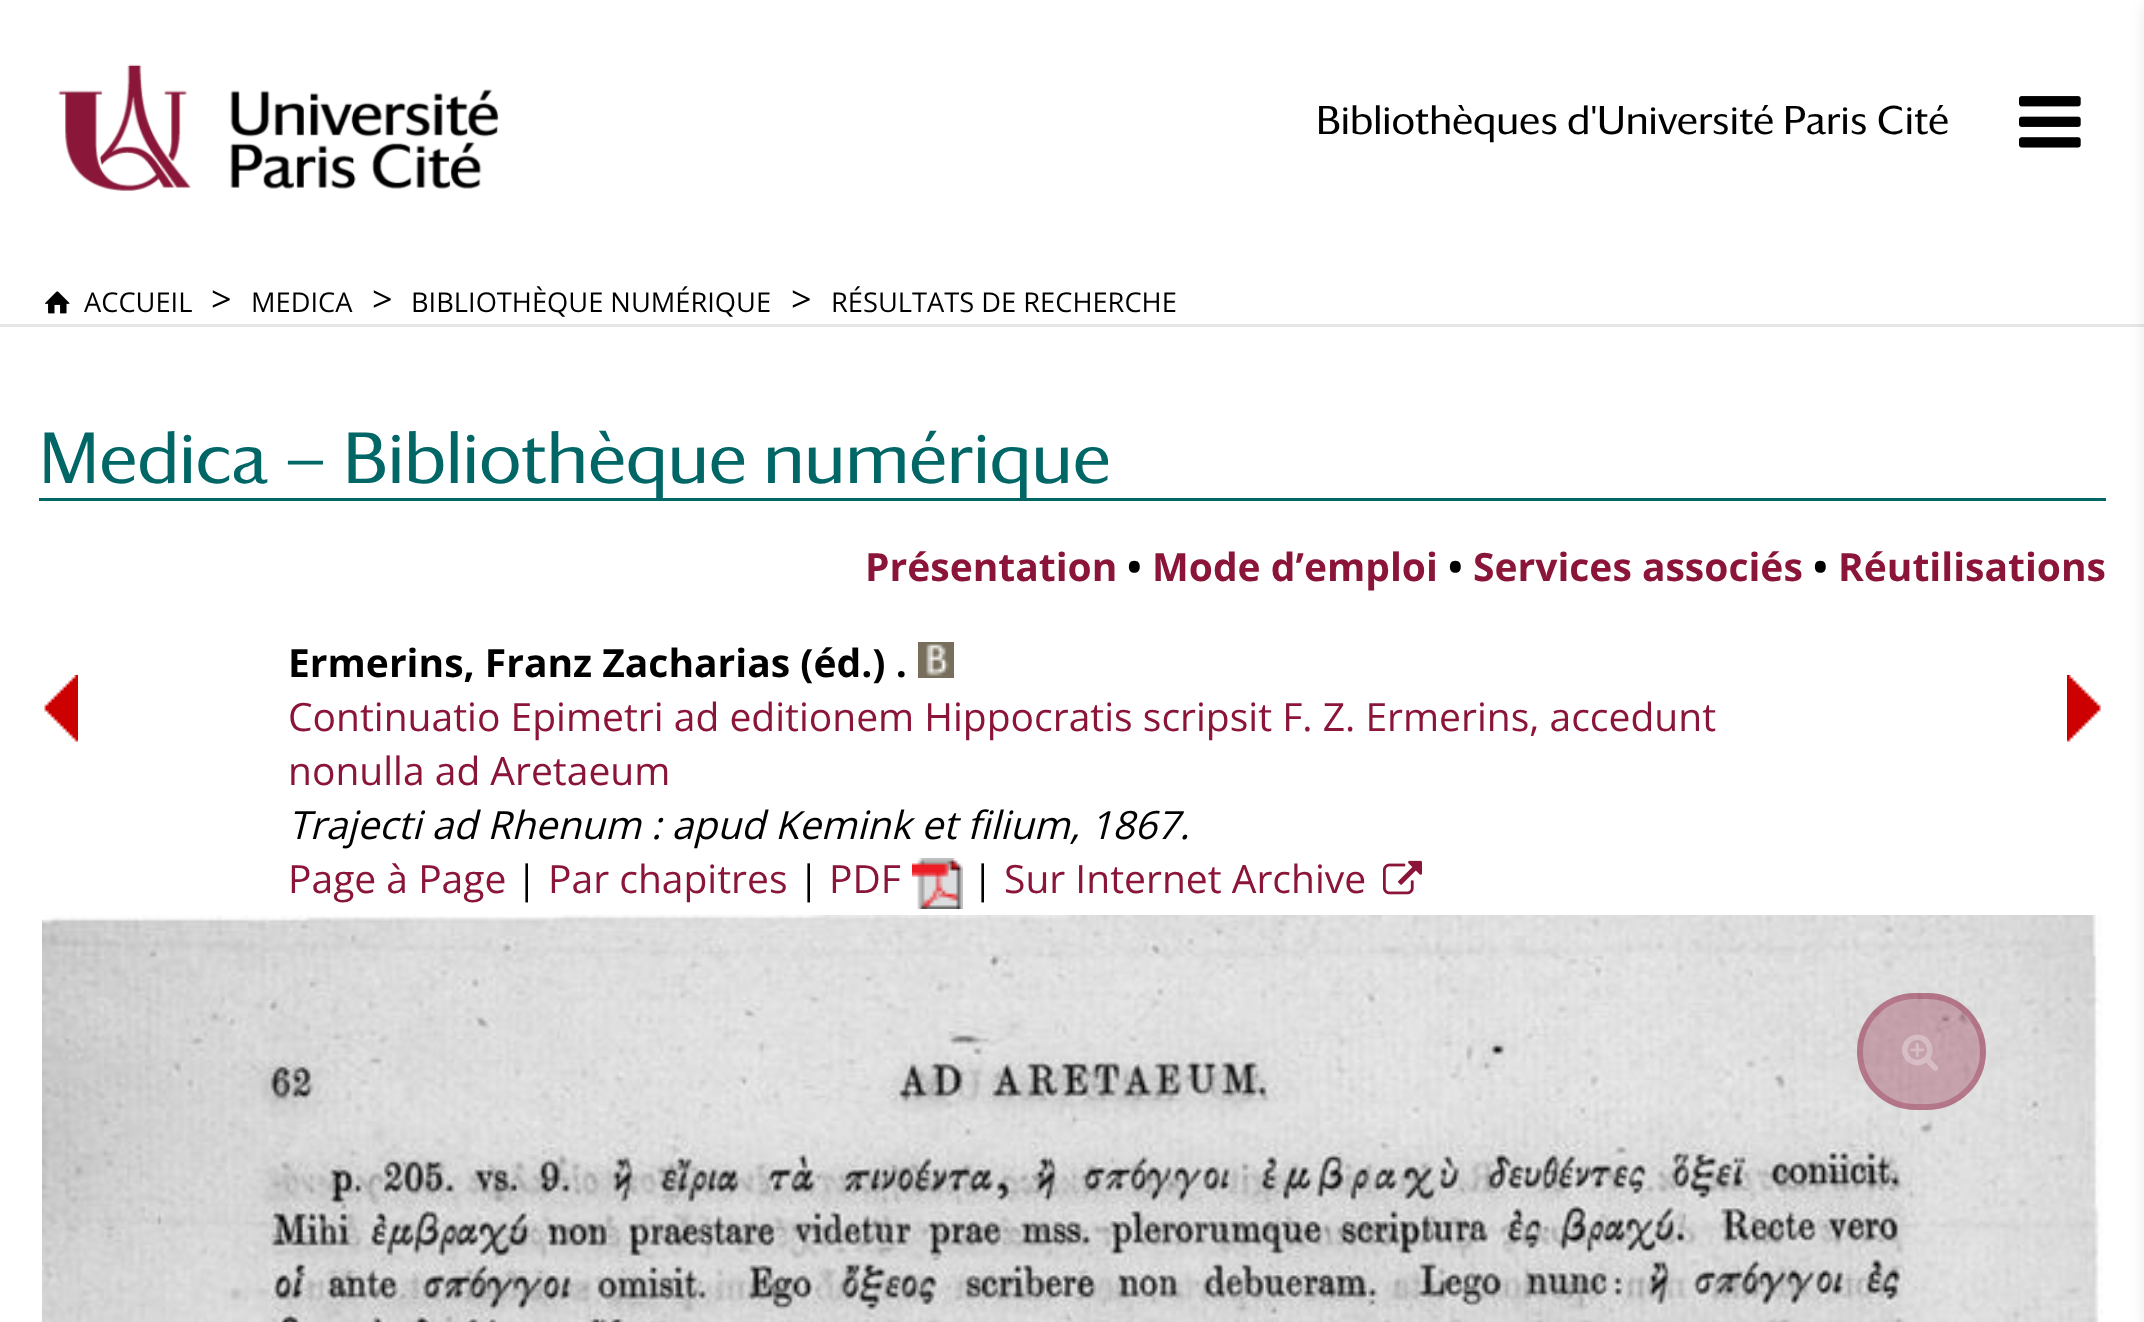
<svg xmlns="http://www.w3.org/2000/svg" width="2144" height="1322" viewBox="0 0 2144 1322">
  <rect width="100%" height="100%" fill="#fff"/>
  <path d="M0 324h2144v3H0z" fill="#e6e6e6"/>
  <image x="58" y="64" width="441" height="127" href="img/1.png"/>
  <image x="2019" y="96" width="62" height="52" href="img/2.png"/>
  <path d="M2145 6h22v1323H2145z" fill="#0000001a" filter="blur(7.5px)"/>
  <image x="45" y="291" width="25" height="23" href="img/3.png"/>
  <path d="M39 498h2067v3H39z" fill="#066"/>
  <image x="44" y="675" width="34" height="67" href="img/4.png"/>
  <image x="918" y="642" width="36" height="36" href="img/5.png"/>
  <image x="912" y="858" width="51" height="51" href="img/6.png"/>
  <image x="1383" y="860" width="39" height="35" href="img/7.png"/>
  <image x="2067" y="675" width="34" height="67" href="img/8.png"/>
  <image x="42" y="915" width="2061" height="407" href="img/9.png"/>
  <rect x="1857" y="993" width="129" height="117" rx="58.5" fill="#8a15384d"/>
  <rect x="1860" y="996" width="123" height="111" rx="55.5" fill="none" stroke="#8a15384d" stroke-width="6"/>
  <image x="1902" y="1034" width="37" height="37" href="img/10.png"/>
  <text x="1316" y="134" font-family="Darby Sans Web" font-size="39" fill="#000">Bibliothèques d'Université Paris Cité</text>
  <text x="84" y="312" font-family="Open Sans" font-size="27.25" fill="#000">ACCUEIL</text>
  <text x="211" y="312" font-family="Open Sans" font-size="36" fill="#000">&gt;</text>
  <text x="251" y="312" font-family="Open Sans" font-size="27.25" fill="#000">MEDICA</text>
  <text x="372" y="312" font-family="Open Sans" font-size="36" fill="#000">&gt;</text>
  <text x="411" y="312" font-family="Open Sans" font-size="27.25" fill="#000">BIBLIOTHÈQUE NUMÉRIQUE</text>
  <text x="791" y="312" font-family="Open Sans" font-size="36" fill="#000">&gt;</text>
  <text x="831" y="312" font-family="Open Sans" font-size="27.25" fill="#000">RÉSULTATS DE RECHERCHE</text>
  <text x="39" y="483" font-family="Darby Sans Web" font-size="70.25" fill="#066">Medica — Bibliothèque numérique</text>
  <text x="865" y="581" font-family="Open Sans" font-size="39" font-weight="bold" fill="#8a1538">Présentation</text>
  <text x="1127" y="581" font-family="Open Sans" font-size="39" font-weight="bold" fill="#000">•</text>
  <text x="1152" y="581" font-family="Open Sans" font-size="39" font-weight="bold" fill="#8a1538">Mode d’emploi</text>
  <text x="1448" y="581" font-family="Open Sans" font-size="39" font-weight="bold" fill="#000">•</text>
  <text x="1473" y="581" font-family="Open Sans" font-size="39" font-weight="bold" fill="#8a1538">Services associés</text>
  <text x="1813" y="581" font-family="Open Sans" font-size="39" font-weight="bold" fill="#000">•</text>
  <text x="1838" y="581" font-family="Open Sans" font-size="39" font-weight="bold" fill="#8a1538">Réutilisations</text>
  <text x="288" y="677" font-family="Open Sans" font-size="39" font-weight="bold" fill="#000">Ermerins, Franz Zacharias (éd.) .</text>
  <g font-family="Open Sans" font-size="39" fill="#8a1538">
    <text x="288" y="731">Continuatio Epimetri ad editionem Hippocratis scripsit F. Z. Ermerins, accedunt</text>
    <text x="288" y="785">nonulla ad Aretaeum</text>
  </g>
  <text x="288" y="839" font-family="Open Sans" font-size="39" font-style="italic" fill="#000">Trajecti ad Rhenum : apud Kemink et filium, 1867.</text>
  <text x="288" y="893" font-family="Open Sans" font-size="39" fill="#8a1538">Page à Page</text>
  <text x="516" y="893" font-family="Open Sans" font-size="39" fill="#000">|</text>
  <text x="548" y="893" font-family="Open Sans" font-size="39" fill="#8a1538">Par chapitres</text>
  <text x="798" y="893" font-family="Open Sans" font-size="39" fill="#000">|</text>
  <text x="829" y="893" font-family="Open Sans" font-size="39" fill="#8a1538">PDF</text>
  <text x="972" y="893" font-family="Open Sans" font-size="39" fill="#000">|</text>
  <text x="1004" y="893" font-family="Open Sans" font-size="39" fill="#8a1538">Sur Internet Archive</text>
</svg>
